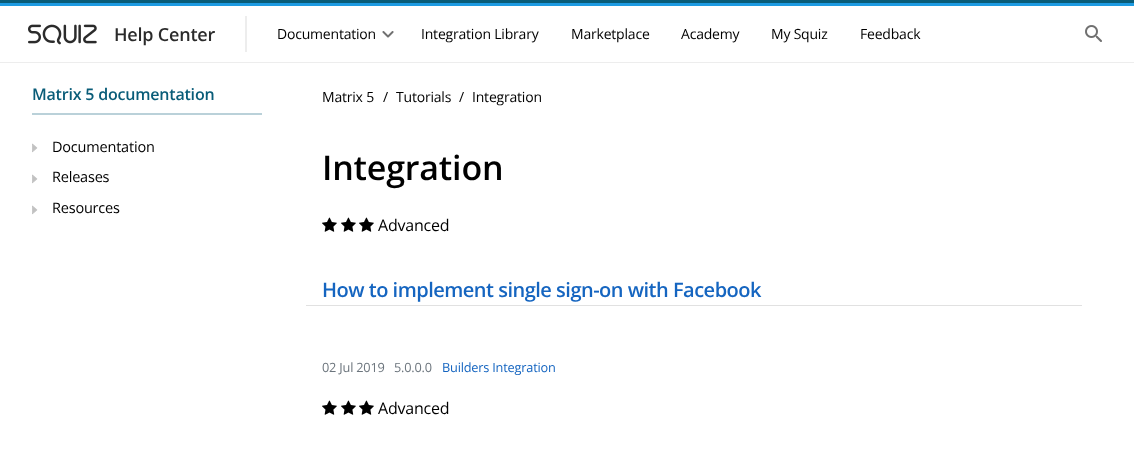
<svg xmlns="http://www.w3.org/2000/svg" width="1134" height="457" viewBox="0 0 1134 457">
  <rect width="100%" height="100%" fill="#fff"/>
  <path d="M0 62h1134v1H0z" fill="#ededed"/>
  <path d="M0 0h1134v3H0z" fill="#095c78"/>
  <path d="M0 3h1134v3H0z" fill="#1d9be2"/>
  <path d="M245 16h2v36H245z" fill="#ededed"/>
  <image x="28" y="24" width="69" height="21" href="img/1.png"/>
  <image x="382" y="31" width="12" height="7" href="img/2.png"/>
  <image x="1085" y="25" width="17" height="17" href="img/3.png"/>
  <path d="M32 113h230v2H32z" fill="#bad1d9"/>
  <image x="32" y="143" width="6" height="10" href="img/4.png"/>
  <image x="32" y="174" width="6" height="10" href="img/4.png"/>
  <image x="32" y="205" width="6" height="10" href="img/4.png"/>
  <image x="322" y="217" width="15" height="15" href="img/5.png"/>
  <image x="341" y="217" width="15" height="15" href="img/5.png"/>
  <image x="359" y="217" width="15" height="15" href="img/5.png"/>
  <path d="M306 305h776v1H306z" fill="#e1e1e1"/>
  <image x="322" y="400" width="15" height="15" href="img/5.png"/>
  <image x="341" y="400" width="15" height="15" href="img/5.png"/>
  <image x="359" y="400" width="15" height="15" href="img/5.png"/>
  <text x="114" y="41" font-family="Open Sans" font-size="18" font-weight="600" letter-spacing="-0.2" fill="#2b2b2b">Help Center</text>
  <g font-family="Open Sans" font-size="14" letter-spacing="-0.2" fill="#000">
    <text x="277" y="39">Documentation</text>
    <text x="421" y="39">Integration Library</text>
    <text x="571" y="39">Marketplace</text>
    <text x="681" y="39">Academy</text>
    <text x="771" y="39">My Squiz</text>
    <text x="860" y="39">Feedback</text>
  </g>
  <text x="32" y="100" font-family="Open Sans" font-size="16" font-weight="600" letter-spacing="-0.2" fill="#095c78">Matrix 5 documentation</text>
  <g font-family="Open Sans" font-size="14.5" letter-spacing="-0.2" fill="#000">
    <text x="52" y="152">Documentation</text>
    <text x="52" y="182">Releases</text>
    <text x="52" y="213">Resources</text>
  </g>
  <g font-family="Open Sans" font-size="14" letter-spacing="-0.2" fill="#000">
    <text x="322" y="102">Matrix 5</text>
    <text x="383" y="102">/</text>
    <text x="396" y="102">Tutorials</text>
    <text x="459" y="102">/</text>
    <text x="472" y="102">Integration</text>
  </g>
  <text x="322" y="180" font-family="Open Sans" font-size="34" font-weight="600" letter-spacing="-0.2" fill="#000">Integration</text>
  <text x="378" y="231" font-family="Open Sans" font-size="16" letter-spacing="-0.2" fill="#000">Advanced</text>
  <text x="322" y="297" font-family="Open Sans" font-size="20" font-weight="600" letter-spacing="-0.5" fill="#1565c0">How to implement single sign-on with Facebook</text>
  <g font-family="Open Sans" font-size="12.75" letter-spacing="-0.2" fill="#6c757d">
    <text x="322" y="372">02 Jul 2019</text>
    <text x="394" y="372">5.0.0.0</text>
  </g>
  <text x="442" y="372" font-family="Open Sans" font-size="12.75" letter-spacing="-0.2" fill="#1565c0">Builders Integration</text>
  <text x="378" y="414" font-family="Open Sans" font-size="16" letter-spacing="-0.2" fill="#000">Advanced</text>
</svg>
